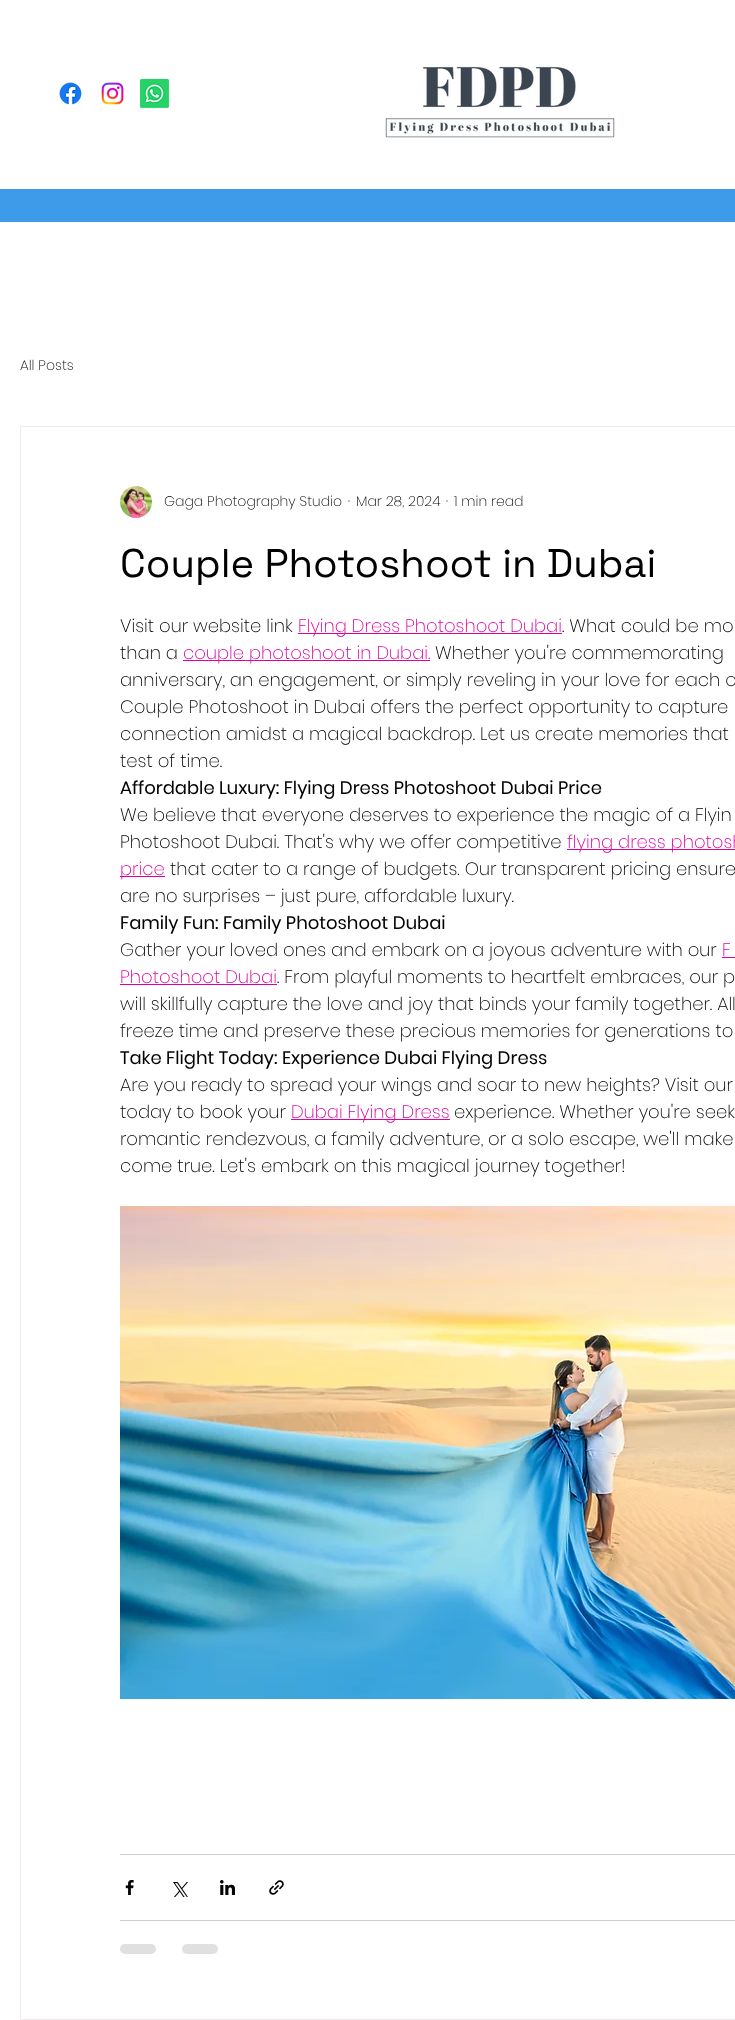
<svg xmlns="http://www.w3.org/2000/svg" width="735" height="2020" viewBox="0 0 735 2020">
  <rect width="100%" height="100%" fill="#fff"/>
  <image x="59" y="82" width="23" height="23" href="img/1.png"/>
  <image x="101" y="82" width="23" height="23" href="img/2.png"/>
  <image x="140" y="79" width="29" height="29" href="img/3.png"/>
  <image x="385" y="66" width="230" height="72" href="img/4.png"/>
  <path d="M0 189h735v33H0z" fill="#3d9be9"/>
  <path d="M20.5 426.5h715v1593H20.5z" fill="none" stroke="#eeecec"/>
  <image x="120" y="486" width="32" height="32" href="img/5.png"/>
  <path d="M298 633h264v1H298z" fill="#db00a1"/>
  <path d="M183 660h247v1H183z" fill="#db00a1"/>
  <path d="M567 849h168v1H567z" fill="#db00a1"/>
  <path d="M120 876h45v1H120z" fill="#db00a1"/>
  <path d="M722 957h13v1H722z" fill="#db00a1"/>
  <path d="M120 984h157v1H120z" fill="#db00a1"/>
  <path d="M291 1119h159v1H291z" fill="#db00a1"/>
  <image x="120" y="1206" width="615" height="493" href="img/6.png"/>
  <path d="M120 1854h615v1H120z" fill="#ccc"/>
  <image x="125" y="1880" width="9" height="15" href="img/7.png"/>
  <image x="173" y="1882" width="15" height="15" href="img/8.png"/>
  <image x="220" y="1880" width="15" height="15" href="img/9.png"/>
  <image x="269" y="1880" width="15" height="15" href="img/10.png"/>
  <path d="M120 1920h615v1H120z" fill="#ccc"/>
  <rect x="120" y="1944" width="36" height="10" rx="5" fill="#e0e0e0"/>
  <rect x="182" y="1944" width="36" height="10" rx="5" fill="#e0e0e0"/>
  <g font-family="Poppins" font-size="14" font-weight="200" fill="#000">
    <text x="20" y="370">All Posts</text>
    <text x="164" y="506">Gaga Photography Studio</text>
    <text x="348" y="506">·</text>
    <text x="356" y="506">Mar 28, 2024</text>
    <text x="446" y="506">·</text>
    <text x="454" y="506">1 min read</text>
  </g>
  <text x="120" y="577" font-family="Space Grotesk" font-size="40" fill="#000">Couple Photoshoot in Dubai</text>
  <text x="120" y="632" font-family="Poppins" font-size="18" font-weight="200" fill="#000">Visit our website link</text>
  <text x="298" y="632" font-family="Poppins" font-size="18" font-weight="200" fill="#db00a1">Flying Dress Photoshoot Dubai</text>
  <g font-family="Poppins" font-size="18" font-weight="200" fill="#000">
    <text x="562" y="632">. What could be mo</text>
    <text x="120" y="659">than a</text>
  </g>
  <text x="183" y="659" font-family="Poppins" font-size="18" font-weight="200" fill="#db00a1">couple photoshoot in Dubai.</text>
  <g font-family="Poppins" font-size="18" font-weight="200" fill="#000">
    <text x="435" y="659">Whether you're commemorating</text>
    <text x="120" y="686">anniversary, an engagement, or simply reveling in your love for each o</text>
    <text x="120" y="713">Couple Photoshoot in Dubai offers the perfect opportunity to capture</text>
    <text x="120" y="740">connection amidst a magical backdrop. Let us create memories that</text>
    <text x="120" y="767">test of time.</text>
  </g>
  <text x="120" y="794" font-family="Poppins" font-size="18" fill="#000">Affordable Luxury: Flying Dress Photoshoot Dubai Price</text>
  <g font-family="Poppins" font-size="18" font-weight="200" fill="#000">
    <text x="120" y="821">We believe that everyone deserves to experience the magic of a Flyin</text>
    <text x="120" y="848">Photoshoot Dubai. That's why we offer competitive</text>
  </g>
  <g font-family="Poppins" font-size="18" font-weight="200" fill="#db00a1">
    <text x="567" y="848">flying dress photosh</text>
    <text x="120" y="875">price</text>
  </g>
  <g font-family="Poppins" font-size="18" font-weight="200" fill="#000">
    <text x="170" y="875">that cater to a range of budgets. Our transparent pricing ensure</text>
    <text x="120" y="902">are no surprises – just pure, affordable luxury.</text>
  </g>
  <text x="120" y="929" font-family="Poppins" font-size="18" fill="#000">Family Fun: Family Photoshoot Dubai</text>
  <text x="120" y="956" font-family="Poppins" font-size="18" font-weight="200" fill="#000">Gather your loved ones and embark on a joyous adventure with our</text>
  <g font-family="Poppins" font-size="18" font-weight="200" fill="#db00a1">
    <text x="722" y="956">F</text>
    <text x="120" y="983">Photoshoot Dubai</text>
  </g>
  <g font-family="Poppins" font-size="18" font-weight="200" fill="#000">
    <text x="277" y="983">. From playful moments to heartfelt embraces, our p</text>
    <text x="120" y="1010">will skillfully capture the love and joy that binds your family together. All</text>
    <text x="120" y="1037">freeze time and preserve these precious memories for generations to</text>
  </g>
  <text x="120" y="1064" font-family="Poppins" font-size="18" fill="#000">Take Flight Today: Experience Dubai Flying Dress</text>
  <g font-family="Poppins" font-size="18" font-weight="200" fill="#000">
    <text x="120" y="1091">Are you ready to spread your wings and soar to new heights? Visit our</text>
    <text x="120" y="1118">today to book your</text>
  </g>
  <text x="291" y="1118" font-family="Poppins" font-size="18" font-weight="200" fill="#db00a1">Dubai Flying Dress</text>
  <g font-family="Poppins" font-size="18" font-weight="200" fill="#000">
    <text x="454" y="1118">experience. Whether you're seek</text>
    <text x="120" y="1145">romantic rendezvous, a family adventure, or a solo escape, we'll make</text>
    <text x="120" y="1172">come true. Let's embark on this magical journey together!</text>
  </g>
</svg>
